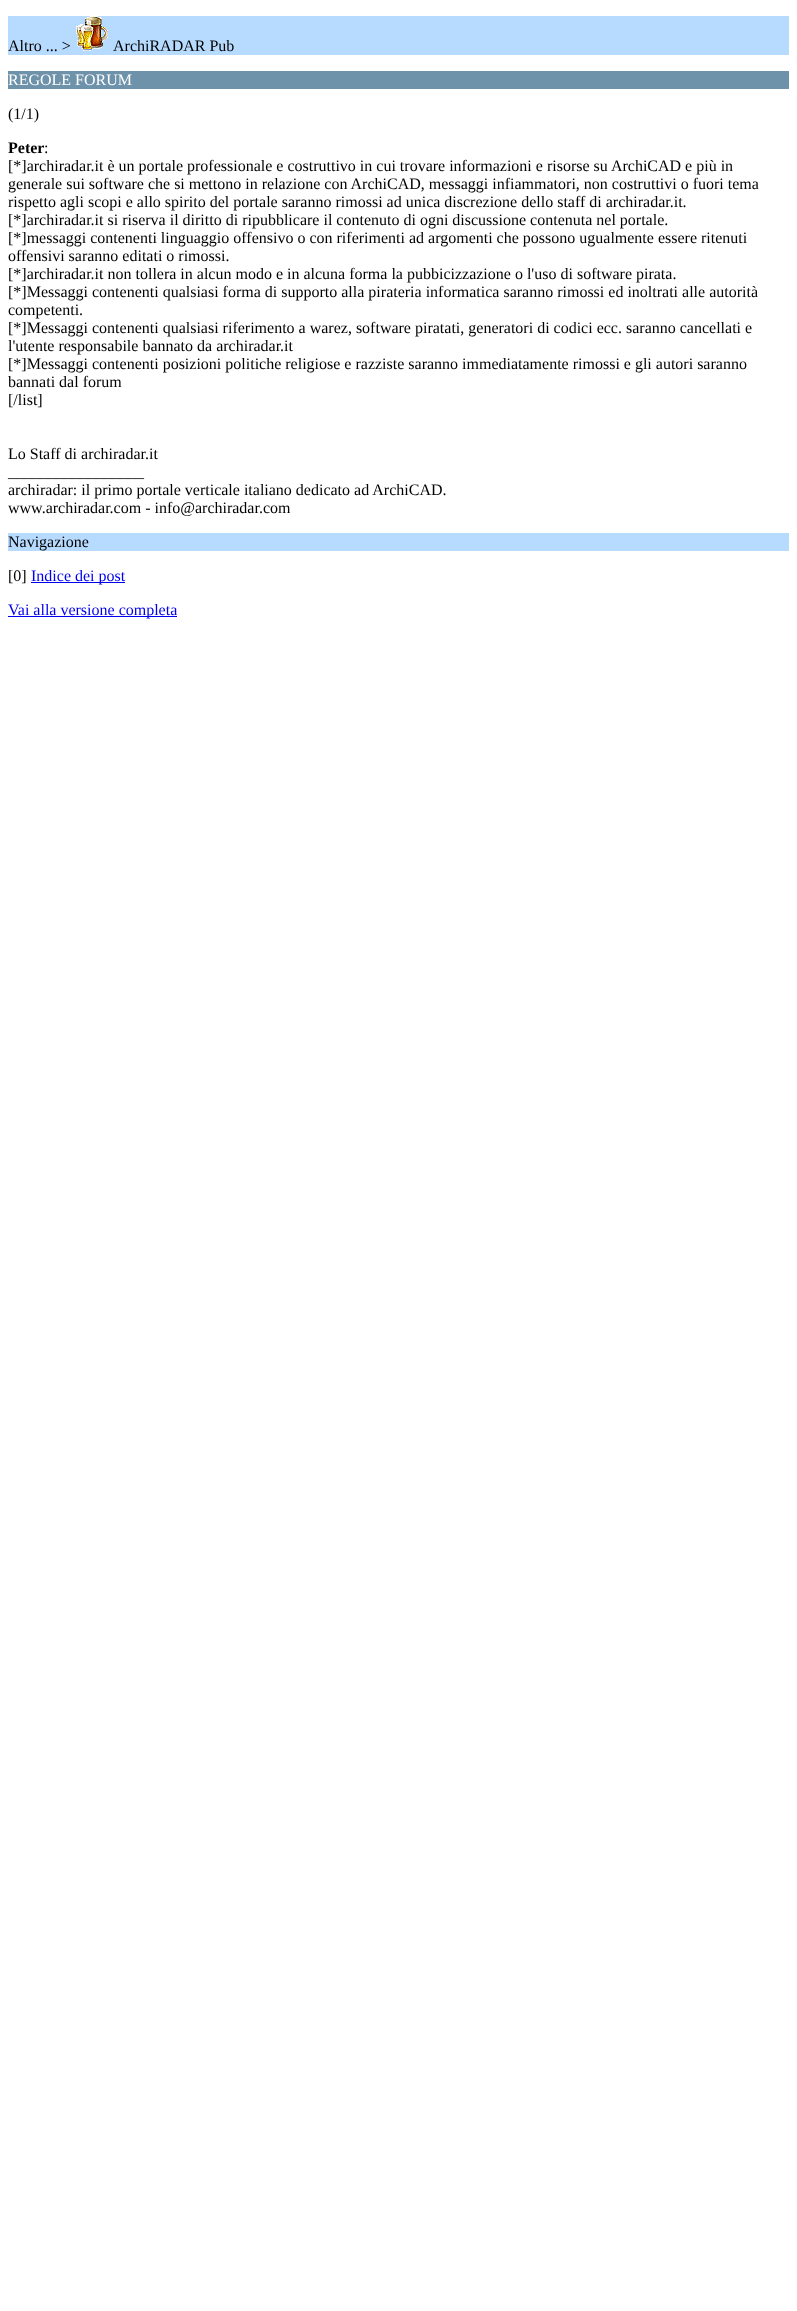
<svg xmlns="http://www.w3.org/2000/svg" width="797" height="2311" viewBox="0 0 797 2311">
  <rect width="100%" height="100%" fill="#fff"/>
  <path d="M8 16h781v39H8z" fill="#b6dbff"/>
  <image x="76" y="16" width="32" height="35" href="img/1.png"/>
  <path d="M8 71h781v18H8z" fill="#6d92aa"/>
  <path d="M8 533h781v18H8z" fill="#b6dbff"/>
  <path d="M31 582h94v1H31z" fill="#00e"/>
  <path d="M8 616h169v1H8z" fill="#00e"/>
  <g font-family="Liberation Serif" font-size="16" fill="#000">
    <text x="8" y="51">Altro ... &gt;</text>
    <text x="113" y="51">ArchiRADAR Pub</text>
  </g>
  <text x="8" y="85" font-family="Liberation Serif" font-size="16" fill="#fff">REGOLE FORUM</text>
  <text x="8" y="119" font-family="Liberation Serif" font-size="16" fill="#000">(1/1)</text>
  <text x="8" y="153" font-family="Liberation Serif" font-size="16" font-weight="bold" fill="#000">Peter</text>
  <g font-family="Liberation Serif" font-size="16" fill="#000">
    <text x="44" y="153">:</text>
    <text x="8" y="171">[*]archiradar.it è un portale professionale e costruttivo in cui trovare informazioni e risorse su ArchiCAD e più in</text>
    <text x="8" y="189">generale sui software che si mettono in relazione con ArchiCAD, messaggi infiammatori, non costruttivi o fuori tema</text>
    <text x="8" y="207">rispetto agli scopi e allo spirito del portale saranno rimossi ad unica discrezione dello staff di archiradar.it.</text>
    <text x="8" y="225">[*]archiradar.it si riserva il diritto di ripubblicare il contenuto di ogni discussione contenuta nel portale.</text>
    <text x="8" y="243">[*]messaggi contenenti linguaggio offensivo o con riferimenti ad argomenti che possono ugualmente essere ritenuti</text>
    <text x="8" y="261">offensivi saranno editati o rimossi.</text>
    <text x="8" y="279">[*]archiradar.it non tollera in alcun modo e in alcuna forma la pubbicizzazione o l'uso di software pirata.</text>
    <text x="8" y="297">[*]Messaggi contenenti qualsiasi forma di supporto alla pirateria informatica saranno rimossi ed inoltrati alle autorità</text>
    <text x="8" y="315">competenti.</text>
    <text x="8" y="333">[*]Messaggi contenenti qualsiasi riferimento a warez, software piratati, generatori di codici ecc. saranno cancellati e</text>
    <text x="8" y="351">l'utente responsabile bannato da archiradar.it</text>
    <text x="8" y="369">[*]Messaggi contenenti posizioni politiche religiose e razziste saranno immediatamente rimossi e gli autori saranno</text>
    <text x="8" y="387">bannati dal forum</text>
    <text x="8" y="405">[/list]</text>
    <text x="8" y="459">Lo Staff di archiradar.it</text>
    <text x="8" y="477">_________________</text>
    <text x="8" y="495">archiradar: il primo portale verticale italiano dedicato ad ArchiCAD.</text>
    <text x="8" y="513">www.archiradar.com - info@archiradar.com</text>
    <text x="8" y="547">Navigazione</text>
    <text x="8" y="581">[0]</text>
  </g>
  <g font-family="Liberation Serif" font-size="16" fill="#00e">
    <text x="31" y="581">Indice dei post</text>
    <text x="8" y="615">Vai alla versione completa</text>
  </g>
</svg>
